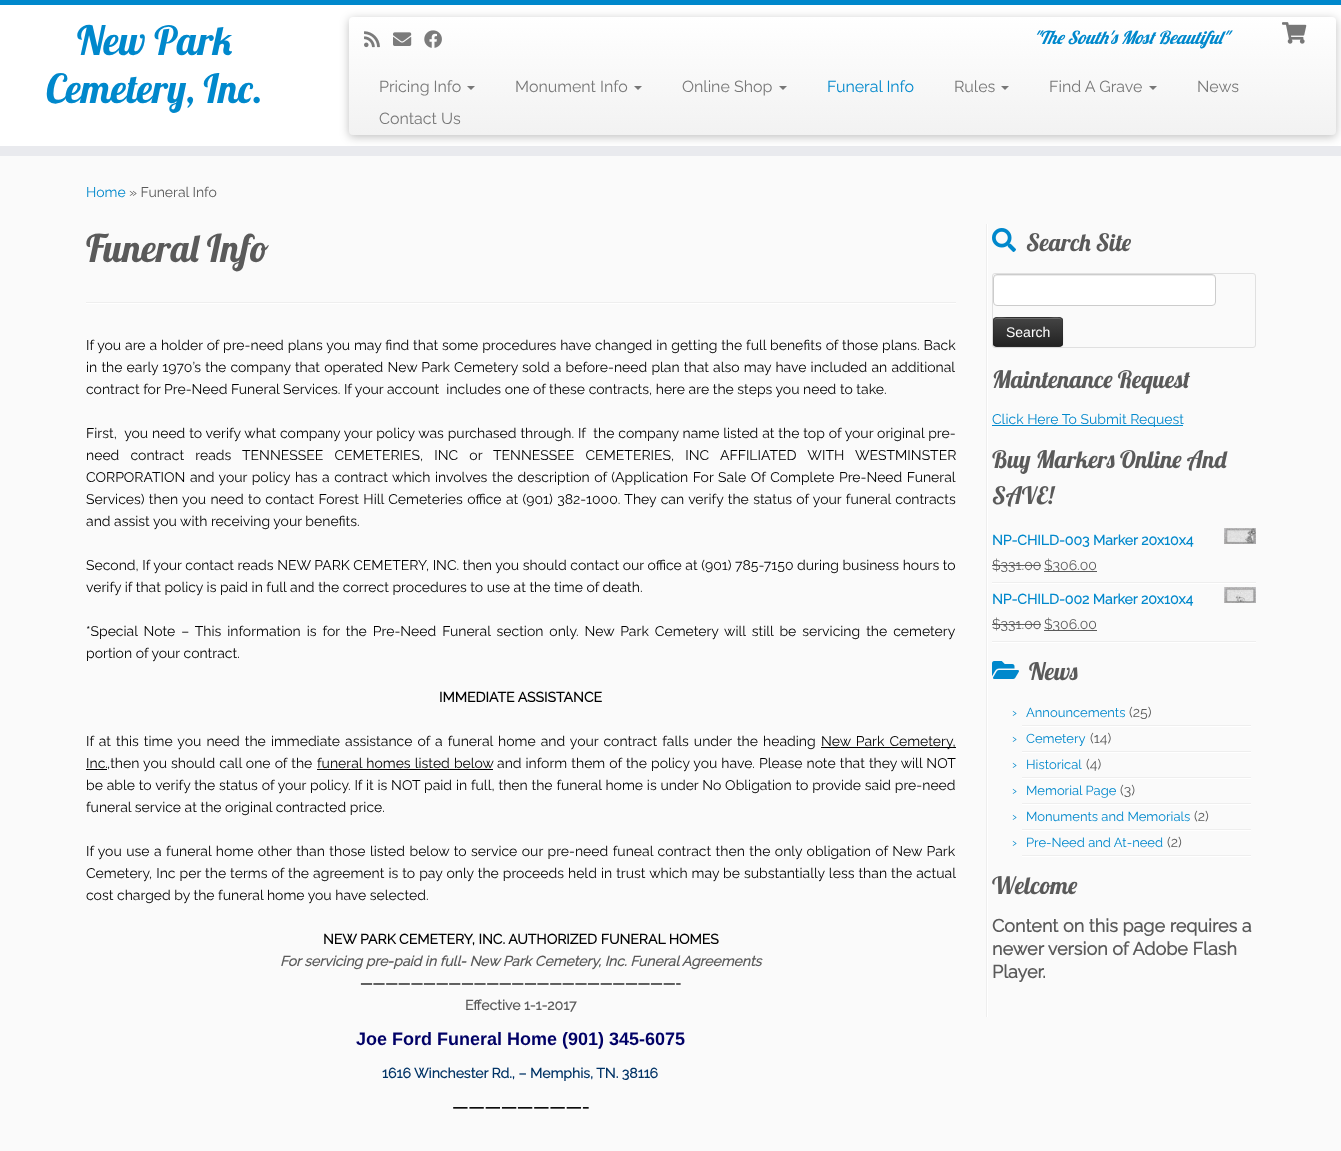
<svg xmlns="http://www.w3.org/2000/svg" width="1341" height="1151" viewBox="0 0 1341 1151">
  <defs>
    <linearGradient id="g1" gradientUnits="userSpaceOnUse" x1="843" y1="17" x2="843" y2="135"><stop offset="0" stop-color="#fff"/><stop offset="1" stop-color="#f2f2f2"/></linearGradient>
    <clipPath id="clip1"><rect x="993" y="317" width="70" height="30" rx="4"/></clipPath>
    <linearGradient id="g2" gradientUnits="userSpaceOnUse" x1="1028" y1="318" x2="1028" y2="346"><stop offset="0" stop-color="#444"/><stop offset="1" stop-color="#222"/></linearGradient>
  </defs>
  <rect width="100%" height="100%" fill="#fafafa"/>
  <path d="M0 5h1341v141H0z" fill="#fff"/>
  <path d="M0 0h1341v5H0z" fill="#08c"/>
  <path d="M0 146h1341v10H0z" fill="#e9eaee"/>
  <rect x="349" y="19" width="987" height="118" rx="4" fill="#00000040" filter="blur(5px)"/>
  <rect x="349" y="17" width="987" height="118" rx="4" fill="url(#g1)"/>
  <image x="364" y="31" width="16" height="17" href="img/1.png"/>
  <image x="393" y="32" width="19" height="14" href="img/2.png"/>
  <image x="424" y="30" width="18" height="18" href="img/3.png"/>
  <image x="1282" y="22" width="25" height="22" href="img/4.png"/>
  <path d="M467 86H475L471 90Z" fill="#777"/>
  <path d="M634 86H642L638 90Z" fill="#777"/>
  <path d="M779 86H787L783 90Z" fill="#777"/>
  <path d="M1001 86H1009L1005 90Z" fill="#777"/>
  <path d="M1149 86H1157L1153 90Z" fill="#777"/>
  <path d="M86 302h870v1H86z" fill="#eee"/>
  <path d="M86 303h870v1H86z" fill="#fff"/>
  <path d="M821 747h135v1H821z" fill="#000"/>
  <path d="M86 769h21v1H86z" fill="#000"/>
  <path d="M317 769h176v1H317z" fill="#000"/>
  <path d="M986 224h1v793H986z" fill="#eee"/>
  <path d="M987 224h1v793H987z" fill="#fff"/>
  <image x="992" y="228" width="24" height="24" href="img/5.png"/>
  <rect x="992.5" y="273.5" width="263" height="74" rx="2.5" fill="none" stroke="#e0e0e0"/>
  <rect x="993" y="274" width="223" height="32" rx="4" fill="#fff"/>
  <path d="M997 276H1212C1214 276 1215 277 1215 279V278C1215 276 1214 275 1212 275H997C995 275 994 276 994 278V279C994 277 995 276 997 276Z" fill="#ececec"/>
  <rect x="993.5" y="274.5" width="222" height="31" rx="3.5" fill="none" stroke="#ccc"/>
  <rect x="993" y="318" width="70" height="30" rx="4" fill="#0000000d" filter="blur(1px)"/>
  <rect x="993" y="317" width="70" height="30" rx="4" fill="#363636"/>
  <g clip-path="url(#clip1)">
    <path d="M993 318h70v28H993z" fill="url(#g2)"/>
  </g>
  <path d="M997 319H1059C1061 319 1062 320 1062 322C1062 315 1053 318 1049 318H1007C1003 318 994 315 994 322C994 320 995 319 997 319Z" fill="#ffffff33"/>
  <path d="M1061.5 345.5L1059.5 346.5H996.5L994.5 345.5" fill="none" stroke="#00000040"/>
  <path d="M994.5 345.5C992.5 343.5 993.5 335 993.5 332C993.5 316 991 317.5 1007.5 317.5H1048.5C1065 317.5 1062.5 316 1062.5 332C1062.5 335 1063.5 343.5 1061.5 345.5" fill="none" stroke="#0000001a"/>
  <path d="M992 425h191v1H992z" fill="#08c"/>
  <path d="M992 582h264v1H992z" fill="#eee"/>
  <image x="1224" y="528" width="32" height="16" href="img/6.png"/>
  <path d="M992 565h49v1H992z" fill="#5a5a5a"/>
  <path d="M1044 571h53v1H1044z" fill="#5a5a5a"/>
  <path d="M992 583h264v1H992z" fill="#fff"/>
  <path d="M992 641h264v1H992z" fill="#eee"/>
  <image x="1224" y="587" width="32" height="16" href="img/7.png"/>
  <path d="M992 624h49v1H992z" fill="#5a5a5a"/>
  <path d="M1044 630h53v1H1044z" fill="#5a5a5a"/>
  <path d="M992 642h264v1H992z" fill="#fff"/>
  <image x="992" y="661" width="27" height="18" href="img/8.png"/>
  <path d="M1022 725h229v1H1022z" fill="#eee"/>
  <path d="M1022 726h229v1H1022z" fill="#fff"/>
  <path d="M1022 751h229v1H1022z" fill="#eee"/>
  <path d="M1022 752h229v1H1022z" fill="#fff"/>
  <path d="M1022 777h229v1H1022z" fill="#eee"/>
  <path d="M1022 778h229v1H1022z" fill="#fff"/>
  <path d="M1022 803h229v1H1022z" fill="#eee"/>
  <path d="M1022 804h229v1H1022z" fill="#fff"/>
  <path d="M1022 829h229v1H1022z" fill="#eee"/>
  <path d="M1022 830h229v1H1022z" fill="#fff"/>
  <path d="M1022 855h229v1H1022z" fill="#eee"/>
  <path d="M1022 856h229v1H1022z" fill="#fff"/>
  <g font-family="Lobster" font-size="40" fill="#08c">
    <text x="77" y="55">New Park</text>
    <text x="46" y="103">Cemetery, Inc.</text>
  </g>
  <text x="1033" y="44" font-family="Lobster" font-size="18" font-style="italic" fill="#08c">"The South's Most Beautiful"</text>
  <g font-family="Raleway" font-size="16" font-weight="100" fill="#777">
    <text x="379" y="92">Pricing Info</text>
    <text x="515" y="92">Monument Info</text>
    <text x="682" y="92">Online Shop</text>
  </g>
  <text x="827" y="92" font-family="Raleway" font-size="16" font-weight="100" fill="#08c">Funeral Info</text>
  <g font-family="Raleway" font-size="16" font-weight="100" fill="#777">
    <text x="954" y="92">Rules</text>
    <text x="1049" y="92">Find A Grave</text>
    <text x="1197" y="92">News</text>
    <text x="379" y="124">Contact Us</text>
  </g>
  <text x="86" y="197" font-family="Raleway" font-size="14" font-weight="100" fill="#08c">Home</text>
  <text x="129" y="197" font-family="Raleway" font-size="14" font-weight="100" fill="#5a5a5a">» Funeral Info</text>
  <text x="86" y="262" font-family="Lobster" font-size="38" fill="#5a5a5a">Funeral Info</text>
  <g font-family="Raleway" font-size="14" font-weight="100" fill="#000">
    <text x="86" y="350" word-spacing="0.3">If you are a holder of pre-need plans you may find that some procedures have changed in getting the full benefits of those plans. Back</text>
    <text x="86" y="372" word-spacing="0.6">in the early 1970’s the company that operated New Park Cemetery sold a before-need plan that also may have included an additional</text>
    <text x="86" y="394" xml:space="preserve">contract for Pre-Need Funeral Services. If your account  includes one of these contracts, here are the steps you need to take.</text>
    <text x="86" y="438" word-spacing="0.3" xml:space="preserve">First,  you need to verify what company your policy was purchased through. If  the company name listed at the top of your original pre-</text>
    <text x="86" y="460" word-spacing="7.6">need contract reads TENNESSEE CEMETERIES, INC or TENNESSEE CEMETERIES, INC AFFILIATED WITH WESTMINSTER</text>
    <text x="86" y="482" word-spacing="1">CORPORATION and your policy has a contract which involves the description of (Application For Sale Of Complete Pre-Need Funeral</text>
    <text x="86" y="504" word-spacing="0.8">Services) then you need to contact Forest Hill Cemeteries office at (901) 382-1000. They can verify the status of your funeral contracts</text>
    <text x="86" y="526">and assist you with receiving your benefits.</text>
    <text x="86" y="570">Second, If your contact reads NEW PARK CEMETERY, INC. then you should contact our office at (901) 785-7150 during business hours to</text>
    <text x="86" y="592">verify if that policy is paid in full and the correct procedures to use at the time of death.</text>
    <text x="86" y="636" word-spacing="2.4">*Special Note – This information is for the Pre-Need Funeral section only. New Park Cemetery will still be servicing the cemetery</text>
    <text x="86" y="658">portion of your contract.</text>
  </g>
  <text x="439" y="702" font-family="Raleway" font-size="14" font-weight="bold" fill="#000">IMMEDIATE ASSISTANCE</text>
  <g font-family="Raleway" font-size="14" font-weight="100" fill="#000">
    <text x="86" y="746" word-spacing="1.5">If at this time you need the immediate assistance of a funeral home and your contract falls under the heading</text>
    <text x="821" y="746" word-spacing="1.5">New Park Cemetery,</text>
    <text x="86" y="768">Inc.</text>
    <text x="107" y="768" word-spacing="0.5">,then you should call one of the</text>
    <text x="317" y="768" word-spacing="0.5">funeral homes listed below</text>
    <text x="497" y="768" word-spacing="0.5">and inform them of the policy you have. Please note that they will NOT</text>
    <text x="86" y="790" word-spacing="0.25">be able to verify the status of your policy. If it is NOT paid in full, then the funeral home is under No Obligation to provide said pre-need</text>
    <text x="86" y="812">funeral service at the original contracted price.</text>
    <text x="86" y="856" word-spacing="0.9">If you use a funeral home other than those listed below to service our pre-need funeal contract then the only obligation of New Park</text>
    <text x="86" y="878" word-spacing="0.45">Cemetery, Inc per the terms of the agreement is to pay only the proceeds held in trust which may be substantially less than the actual</text>
    <text x="86" y="900">cost charged by the funeral home you have selected.</text>
  </g>
  <text x="323" y="944" font-family="Raleway" font-size="14" font-weight="bold" fill="#000">NEW PARK CEMETERY, INC. AUTHORIZED FUNERAL HOMES</text>
  <text x="280" y="966" font-family="Raleway" font-size="14" font-weight="bold" font-style="italic" fill="#5a5a5a">For servicing pre-paid in full- New Park Cemetery, Inc. Funeral Agreements</text>
  <text x="360" y="988" font-family="Raleway" font-size="14" font-weight="bold" fill="#000">—————————————————————————-</text>
  <text x="465" y="1010" font-family="Raleway" font-size="14" font-weight="bold" fill="#5a5a5a">Effective 1-1-2017</text>
  <text x="356" y="1045" font-family="Liberation Sans" font-size="18" font-weight="bold" fill="#006">Joe Ford Funeral Home (901) 345-6075</text>
  <text x="382" y="1078" font-family="Raleway" font-size="14" font-weight="bold" fill="#036">1616 Winchester Rd., – Memphis, TN. 38116</text>
  <text x="452" y="1113" font-family="Raleway" font-size="18" font-weight="bold" fill="#000">————————-</text>
  <text x="1026" y="251" font-family="Lobster" font-size="24" fill="#5a5a5a">Search Site</text>
  <text x="1006" y="337" font-family="Liberation Sans" font-size="14" fill="#fff">Search</text>
  <text x="992" y="388" font-family="Lobster" font-size="24" fill="#5a5a5a">Maintenance Request</text>
  <text x="992" y="424" font-family="Raleway" font-size="14" font-weight="100" fill="#08c">Click Here To Submit Request</text>
  <g font-family="Lobster" font-size="24" fill="#5a5a5a">
    <text x="992" y="468">Buy Markers Online And</text>
    <text x="992" y="504">SAVE!</text>
  </g>
  <text x="992" y="545" font-family="Raleway" font-size="14" font-weight="bold" fill="#08c">NP-CHILD-003 Marker 20x10x4</text>
  <g font-family="Raleway" font-size="14" font-weight="100" fill="#5a5a5a">
    <text x="992" y="570">$331.00</text>
    <text x="1044" y="570">$306.00</text>
  </g>
  <text x="992" y="604" font-family="Raleway" font-size="14" font-weight="bold" fill="#08c">NP-CHILD-002 Marker 20x10x4</text>
  <g font-family="Raleway" font-size="14" font-weight="100" fill="#5a5a5a">
    <text x="992" y="629">$331.00</text>
    <text x="1044" y="629">$306.00</text>
  </g>
  <text x="1029" y="680" font-family="Lobster" font-size="24" fill="#5a5a5a">News</text>
  <text x="1012" y="717" font-family="Raleway" font-size="14" font-weight="100" fill="#08c">›</text>
  <text x="1026" y="717" font-family="Raleway" font-size="13" font-weight="100" fill="#08c">Announcements</text>
  <text x="1129" y="717" font-family="Raleway" font-size="14" font-weight="100" fill="#5a5a5a">(25)</text>
  <text x="1012" y="743" font-family="Raleway" font-size="14" font-weight="100" fill="#08c">›</text>
  <text x="1026" y="743" font-family="Raleway" font-size="13" font-weight="100" fill="#08c">Cemetery</text>
  <text x="1090" y="743" font-family="Raleway" font-size="14" font-weight="100" fill="#5a5a5a">(14)</text>
  <text x="1012" y="769" font-family="Raleway" font-size="14" font-weight="100" fill="#08c">›</text>
  <text x="1026" y="769" font-family="Raleway" font-size="13" font-weight="100" fill="#08c">Historical</text>
  <text x="1086" y="769" font-family="Raleway" font-size="14" font-weight="100" fill="#5a5a5a">(4)</text>
  <text x="1012" y="795" font-family="Raleway" font-size="14" font-weight="100" fill="#08c">›</text>
  <text x="1026" y="795" font-family="Raleway" font-size="13" font-weight="100" fill="#08c">Memorial Page</text>
  <text x="1120" y="795" font-family="Raleway" font-size="14" font-weight="100" fill="#5a5a5a">(3)</text>
  <text x="1012" y="821" font-family="Raleway" font-size="14" font-weight="100" fill="#08c">›</text>
  <text x="1026" y="821" font-family="Raleway" font-size="13" font-weight="100" fill="#08c">Monuments and Memorials</text>
  <text x="1194" y="821" font-family="Raleway" font-size="14" font-weight="100" fill="#5a5a5a">(2)</text>
  <text x="1012" y="847" font-family="Raleway" font-size="14" font-weight="100" fill="#08c">›</text>
  <text x="1026" y="847" font-family="Raleway" font-size="13" font-weight="100" fill="#08c">Pre-Need and At-need</text>
  <text x="1167" y="847" font-family="Raleway" font-size="14" font-weight="100" fill="#5a5a5a">(2)</text>
  <text x="992" y="894" font-family="Lobster" font-size="24" fill="#5a5a5a">Welcome</text>
  <g font-family="Raleway" font-size="18" font-weight="bold" fill="#5a5a5a">
    <text x="992" y="932">Content on this page requires a</text>
    <text x="992" y="955">newer version of Adobe Flash</text>
    <text x="992" y="978">Player.</text>
  </g>
</svg>
